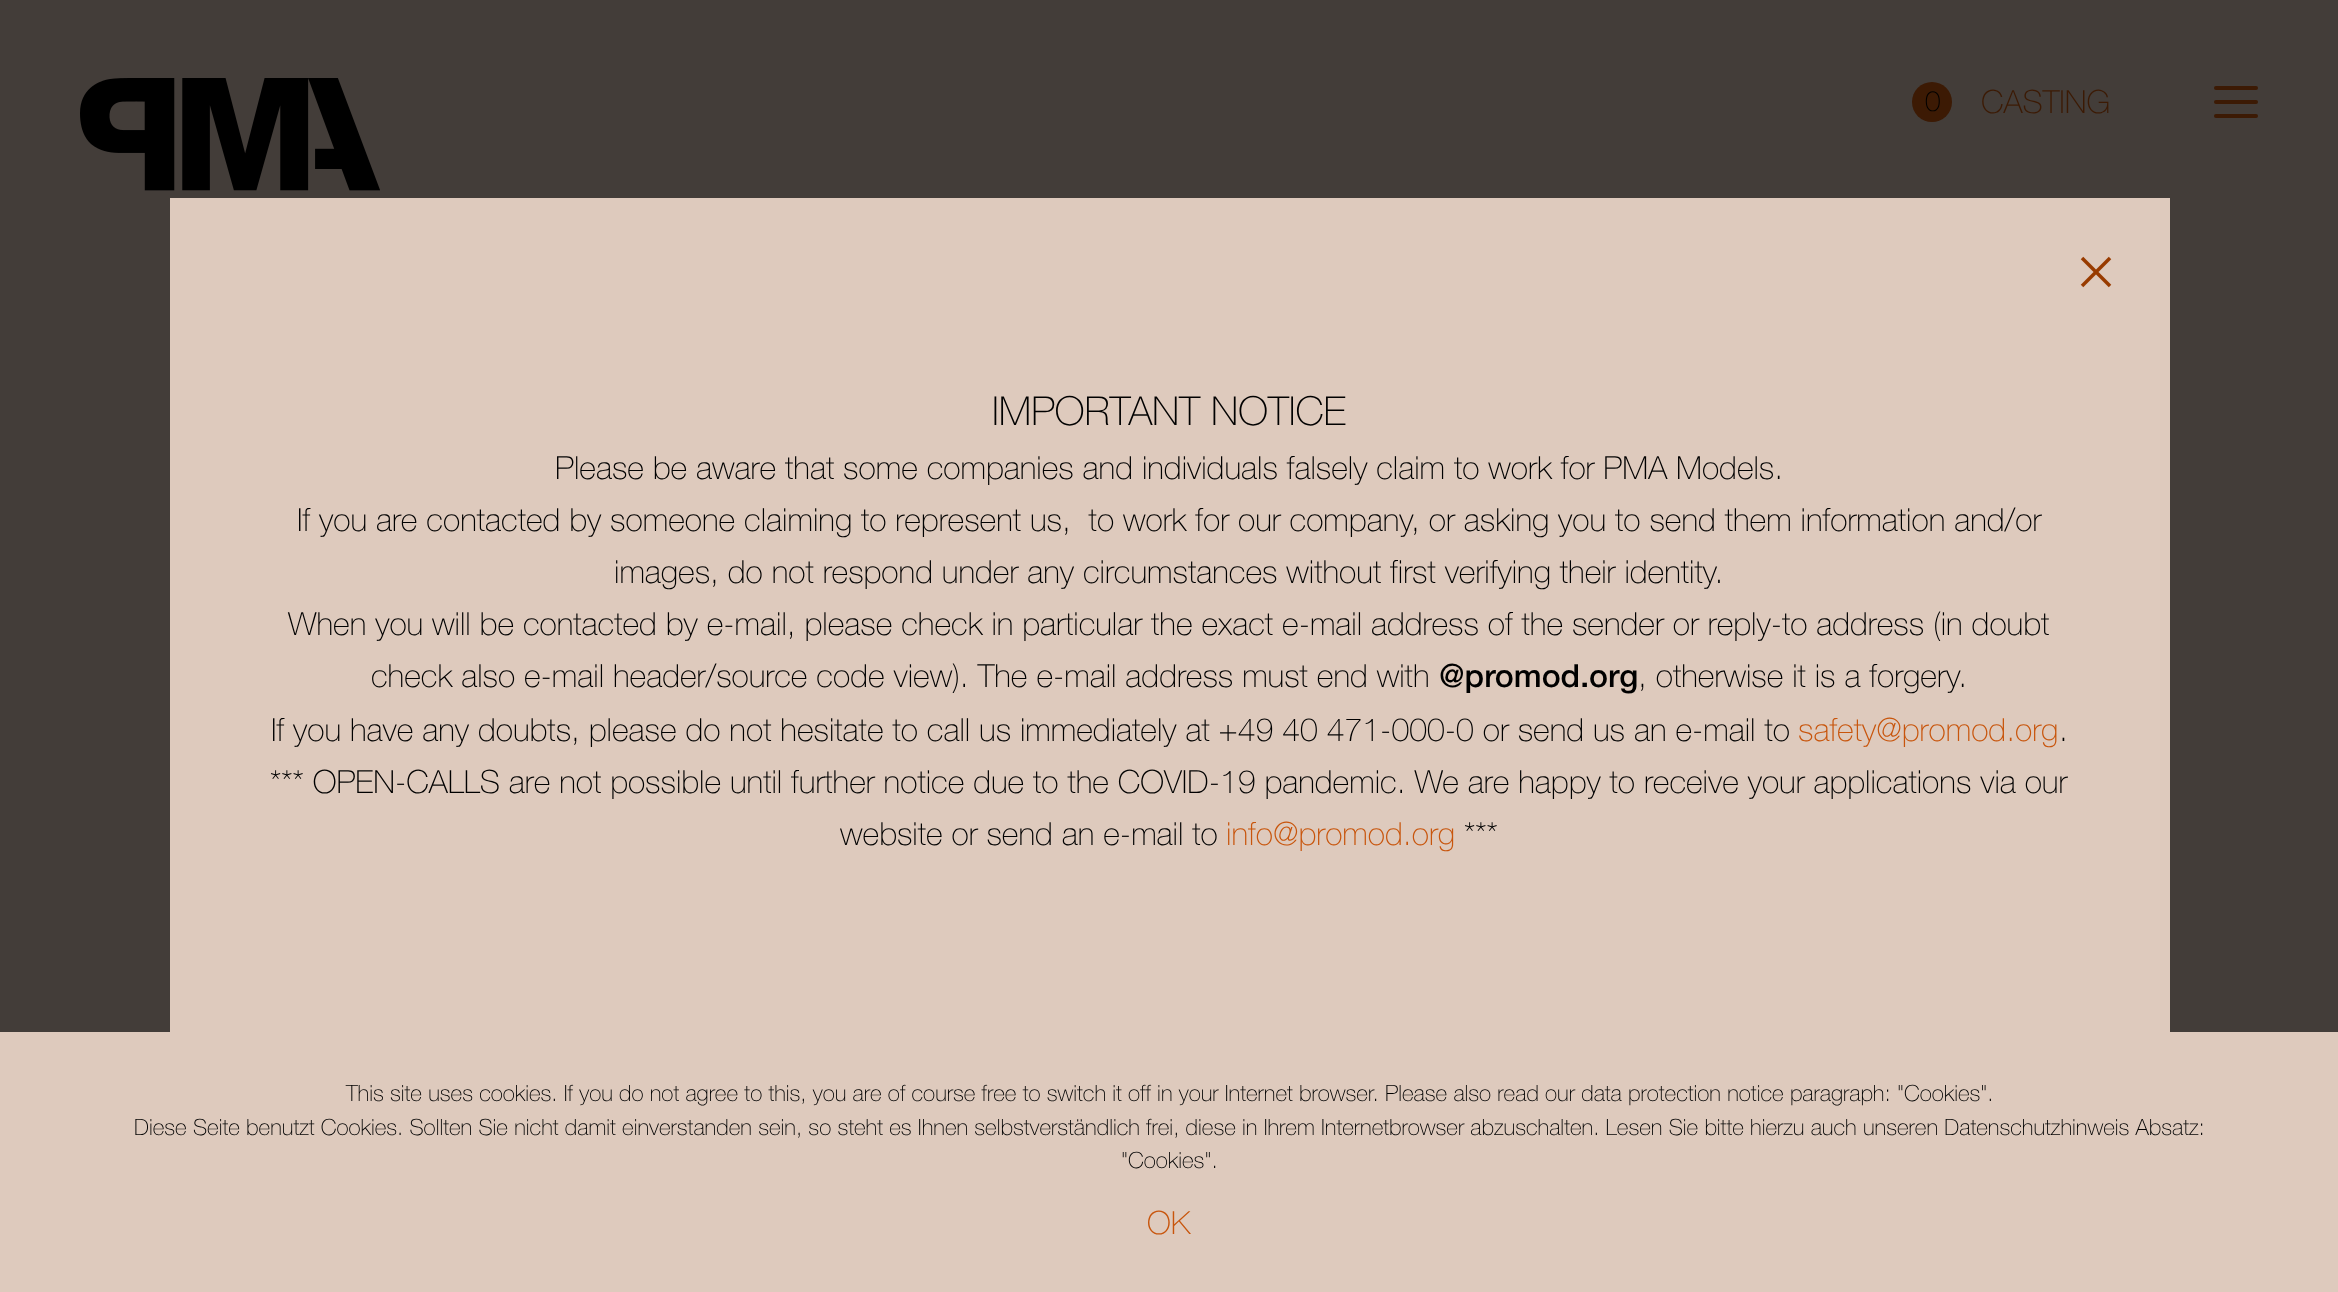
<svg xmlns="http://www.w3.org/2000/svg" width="2338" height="1292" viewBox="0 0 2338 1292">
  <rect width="100%" height="100%" fill="#433d39"/>
  <image x="80" y="78" width="300" height="113" href="img/1.png"/>
  <circle cx="1932" cy="102" r="20" fill="#3c1a04"/>
  <rect x="2214" y="86" width="44" height="4" rx="2" fill="#3c1a04"/>
  <rect x="2214" y="100" width="44" height="4" rx="2" fill="#3c1a04"/>
  <rect x="2214" y="114" width="44" height="4" rx="2" fill="#3c1a04"/>
  <path d="M170 198h2000v834H170z" fill="#decabd"/>
  <image x="2080" y="256" width="32" height="32" href="img/2.png"/>
  <path d="M0 1032h2338v260H0z" fill="#decabd"/>
  <text x="1925" y="111" font-family="'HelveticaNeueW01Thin'" font-size="28" font-weight="100" fill="#000">0</text>
  <text x="1981" y="113" font-family="'HelveticaNeueW01Thin'" font-size="32" font-weight="100" fill="#3c1a04">CASTING</text>
  <text x="992" y="425" font-family="'HelveticaNeueW01Thin'" font-size="40" font-weight="100" fill="#000">IMPORTANT NOTICE</text>
  <g font-family="'HelveticaNeueW01Thin'" font-size="32" font-weight="100" fill="#000">
    <text x="555" y="479">Please be aware that some companies and individuals falsely claim to work for PMA Models.</text>
    <text x="297" y="531" xml:space="preserve">If you are contacted by someone claiming to represent us,  to work for our company, or asking you to send them information and/or</text>
    <text x="614" y="583">images, do not respond under any circumstances without first verifying their identity.</text>
    <text x="288" y="635">When you will be contacted by e-mail, please check in particular the exact e-mail address of the sender or reply-to address (in doubt</text>
    <text x="371" y="687">check also e-mail header/source code view). The e-mail address must end with</text>
  </g>
  <text x="1439" y="687" font-family="'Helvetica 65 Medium'" font-size="32" font-weight="500" fill="#000">@promod.org</text>
  <g font-family="'HelveticaNeueW01Thin'" font-size="32" font-weight="100" fill="#000">
    <text x="1638" y="687">, otherwise it is a forgery.</text>
    <text x="271" y="741">If you have any doubts, please do not hesitate to call us immediately at +49 40 471-000-0 or send us an e-mail to</text>
  </g>
  <text x="1798" y="741" font-family="'HelveticaNeueW01Thin'" font-size="32" font-weight="100" fill="#c8550c">safety@promod.org</text>
  <g font-family="'HelveticaNeueW01Thin'" font-size="32" font-weight="100" fill="#000">
    <text x="2059" y="741">.</text>
    <text x="270" y="793">*** OPEN-CALLS are not possible until further notice due to the COVID-19 pandemic. We are happy to receive your applications via our</text>
    <text x="840" y="845">website or send an e-mail to</text>
  </g>
  <text x="1226" y="845" font-family="'HelveticaNeueW01Thin'" font-size="32" font-weight="100" fill="#c8550c">info@promod.org</text>
  <text x="1464" y="845" font-family="'HelveticaNeueW01Thin'" font-size="32" font-weight="100" fill="#000">***</text>
  <g font-family="'HelveticaNeueW01Thin'" font-size="22.4" font-weight="100" fill="#000">
    <text x="346" y="1101">This site uses cookies. If you do not agree to this, you are of course free to switch it off in your Internet browser. Please also read our data protection notice paragraph: "Cookies".</text>
    <text x="134" y="1135">Diese Seite benutzt Cookies. Sollten Sie nicht damit einverstanden sein, so steht es Ihnen selbstverständlich frei, diese in Ihrem Internetbrowser abzuschalten. Lesen Sie bitte hierzu auch unseren Datenschutzhinweis Absatz:</text>
    <text x="1121" y="1168">"Cookies".</text>
  </g>
  <text x="1147" y="1234" font-family="'HelveticaNeueW01Thin'" font-size="32" font-weight="100" fill="#c8550c">OK</text>
</svg>
